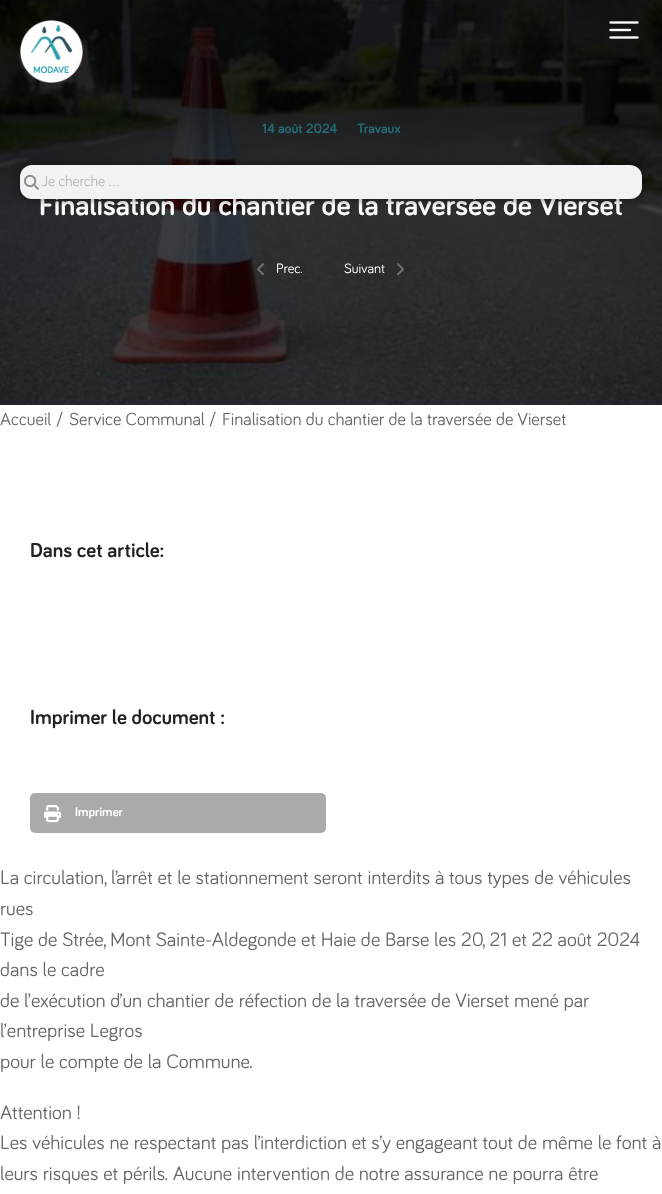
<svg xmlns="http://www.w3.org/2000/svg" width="662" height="1194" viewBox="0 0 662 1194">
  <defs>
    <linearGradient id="g1" gradientUnits="userSpaceOnUse" x1="331" y1="0" x2="331" y2="209"><stop offset="0.48" stop-color="#020101" stop-opacity="0.46"/><stop offset="1" stop-color="#020101" stop-opacity="0"/></linearGradient>
  </defs>
  <rect width="100%" height="100%" fill="#fff"/>
  <image x="0" y="0" width="662" height="405" href="img/1.png"/>
  <image x="257" y="263" width="7" height="12" href="img/2.png"/>
  <image x="397" y="263" width="7" height="12" href="img/3.png"/>
  <rect x="30" y="793" width="296" height="40" rx="5" fill="#aaa"/>
  <image x="44" y="805" width="17" height="18" href="img/4.png"/>
  <g font-family="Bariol" font-size="14" font-weight="bold" fill="#33a1b3">
    <text x="262" y="133">14 août 2024</text>
    <text x="357" y="133">Travaux</text>
  </g>
  <text x="39" y="215" font-family="Bariol" font-size="30" font-weight="bold" fill="#fff">Finalisation du chantier de la traversée de Vierset</text>
  <g font-family="Bariol" font-size="14" fill="#fff">
    <text x="276" y="273">Prec.</text>
    <text x="344" y="273">Suivant</text>
  </g>
  <g font-family="Bariol" font-size="18" fill="#666">
    <text x="0" y="425">Accueil</text>
    <text x="56" y="425">/</text>
    <text x="69" y="425">Service Communal</text>
    <text x="209" y="425">/</text>
    <text x="222" y="425">Finalisation du chantier de la traversée de Vierset</text>
  </g>
  <g font-family="Bariol" font-size="21" font-weight="bold" fill="#222">
    <text x="30" y="557">Dans cet article:</text>
    <text x="30" y="724">Imprimer le document :</text>
  </g>
  <text x="75" y="816" font-family="Bariol" font-size="13" font-weight="bold" fill="#fff">Imprimer</text>
  <g font-family="Bariol" font-size="20" fill="#666">
    <text x="0" y="884">La circulation, l’arrêt et le stationnement seront interdits à tous types de véhicules</text>
    <text x="0" y="915">rues</text>
    <text x="0" y="946">Tige de Strée, Mont Sainte-Aldegonde et Haie de Barse les 20, 21 et 22 août 2024</text>
    <text x="0" y="976">dans le cadre</text>
    <text x="0" y="1007">de l’exécution d’un chantier de réfection de la traversée de Vierset mené par</text>
    <text x="0" y="1037">l’entreprise Legros</text>
    <text x="0" y="1068">pour le compte de la Commune.</text>
    <text x="0" y="1119">Attention !</text>
    <text x="0" y="1149">Les véhicules ne respectant pas l’interdiction et s’y engageant tout de même le font à</text>
    <text x="0" y="1180">leurs risques et périls. Aucune intervention de notre assurance ne pourra être</text>
  </g>
  <path d="M0 0h662v204H0z" fill="url(#g1)"/>
  <image x="20" y="20" width="63" height="63" href="img/5.png"/>
  <image x="609" y="21" width="30" height="18" href="img/6.png"/>
  <rect x="20" y="165" width="622" height="34" rx="12" fill="#00000080" filter="blur(5px)"/>
  <rect x="20" y="165" width="622" height="34" rx="12" fill="#f1f2f3"/>
  <image x="24" y="174" width="15" height="16" href="img/7.png"/>
  <text x="42" y="186" font-family="Bariol" font-size="15" fill="#b3b5b7">Je cherche ...</text>
</svg>
